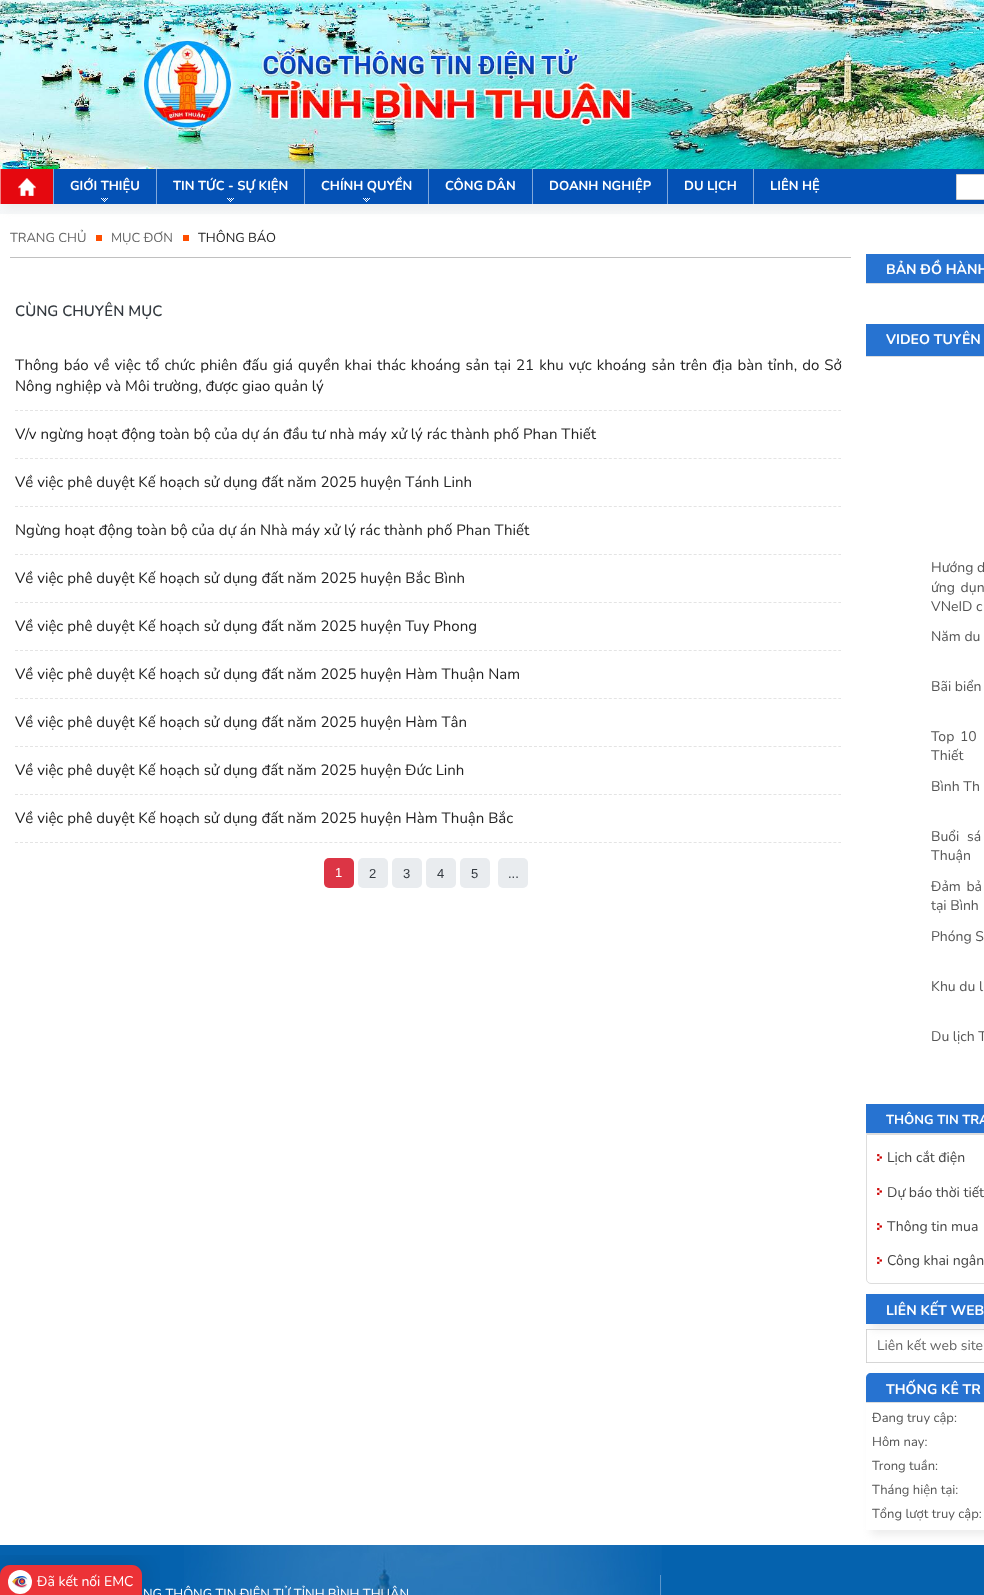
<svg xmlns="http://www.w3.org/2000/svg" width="984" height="1595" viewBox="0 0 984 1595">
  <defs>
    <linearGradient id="g1" gradientUnits="userSpaceOnUse" x1="492" y1="0" x2="492" y2="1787"><stop offset="0.01" stop-color="#f9f9f9"/><stop offset="1" stop-color="#dceffc"/></linearGradient>
    <clipPath id="clip1"><path d="M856 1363H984V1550H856ZM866 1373H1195V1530H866Z" clip-rule="evenodd"/></clipPath>
    <clipPath id="clip2"><path d="M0 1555h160v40H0z"/></clipPath>
  </defs>
  <rect width="100%" height="100%" fill="#fff"/>
  <path d="M0 204h984v10H0z" fill="url(#g1)"/>
  <path d="M5 174h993v35H5z" fill="#ececec" filter="blur(4.5px)"/>
  <image x="0" y="0" width="984" height="169" href="img/1.png"/>
  <path d="M54 169h930v35H54z" fill="#0451b5"/>
  <path d="M1 169h52v35H1z" fill="#e5080f"/>
  <path d="M0 169h1v35H0z" fill="#f28487"/>
  <image x="18" y="178" width="18" height="18" href="img/2.png"/>
  <path d="M53 169h1v35H53z" fill="#82a8da"/>
  <image x="101" y="198" width="7" height="4" href="img/3.png"/>
  <path d="M156 169h1v35H156z" fill="#82a8da"/>
  <image x="227" y="198" width="7" height="4" href="img/3.png"/>
  <path d="M304 169h1v35H304z" fill="#82a8da"/>
  <image x="363" y="198" width="7" height="4" href="img/3.png"/>
  <path d="M428 169h1v35H428z" fill="#82a8da"/>
  <path d="M532 169h1v35H532z" fill="#82a8da"/>
  <path d="M667 169h1v35H667z" fill="#82a8da"/>
  <path d="M753 169h1v35H753z" fill="#82a8da"/>
  <path d="M10 257h841v1H10z" fill="#c0c0c0"/>
  <path d="M96 235h6v6H96z" fill="#ff4e00"/>
  <path d="M183 235h6v6H183z" fill="#ff4e00"/>
  <path d="M15 410.5H841" fill="none" stroke="#e4e4e4" stroke-dasharray="3 1.99"/>
  <path d="M15 458.5H841" fill="none" stroke="#e4e4e4" stroke-dasharray="3 1.99"/>
  <path d="M15 506.5H841" fill="none" stroke="#e4e4e4" stroke-dasharray="3 1.99"/>
  <path d="M15 554.5H841" fill="none" stroke="#e4e4e4" stroke-dasharray="3 1.99"/>
  <path d="M15 602.5H841" fill="none" stroke="#e4e4e4" stroke-dasharray="3 1.99"/>
  <path d="M15 650.5H841" fill="none" stroke="#e4e4e4" stroke-dasharray="3 1.99"/>
  <path d="M15 698.5H841" fill="none" stroke="#e4e4e4" stroke-dasharray="3 1.99"/>
  <path d="M15 746.5H841" fill="none" stroke="#e4e4e4" stroke-dasharray="3 1.99"/>
  <path d="M15 794.5H841" fill="none" stroke="#e4e4e4" stroke-dasharray="3 1.99"/>
  <path d="M15 842.5H841" fill="none" stroke="#e4e4e4" stroke-dasharray="3 1.99"/>
  <rect x="324" y="858" width="30" height="30" rx="5" fill="#dc3545"/>
  <rect x="358" y="858" width="30" height="30" rx="5" fill="#e9ecef"/>
  <rect x="392" y="858" width="30" height="30" rx="5" fill="#e9ecef"/>
  <rect x="426" y="858" width="30" height="30" rx="5" fill="#e9ecef"/>
  <rect x="460" y="858" width="30" height="30" rx="5" fill="#e9ecef"/>
  <rect x="498" y="858" width="30" height="30" rx="5" fill="#e9ecef"/>
  <path d="M956.5 174.5h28v25H956.5z" fill="#fff" stroke="#ccc"/>
  <path d="M866 254h118v29H866z" fill="#2773d1"/>
  <path d="M866 283h118v1H866z" fill="#ddd"/>
  <path d="M866 324h118v32H866z" fill="#2773d1"/>
  <path d="M866 356h118v1H866z" fill="#ddd"/>
  <path d="M866 1104h118v29H866z" fill="#2773d1"/>
  <path d="M866 1133h118v1H866z" fill="#ddd"/>
  <path d="M866.5 1134.5H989.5V1279C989.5 1281.5 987.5 1283.5 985 1283.5H871C868.5 1283.5 866.5 1281.5 866.5 1279Z" fill="none" stroke="#ddd"/>
  <image x="877" y="1154" width="5" height="7" href="img/4.png"/>
  <image x="877" y="1188" width="5" height="7" href="img/4.png"/>
  <image x="877" y="1223" width="5" height="7" href="img/4.png"/>
  <image x="877" y="1257" width="5" height="7" href="img/4.png"/>
  <path d="M871 1299h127v30H871z" fill="#ececec" filter="blur(4.5px)"/>
  <path d="M866 1294h118v30H866z" fill="#2773d1"/>
  <path d="M866 1329h118v1H866z" fill="#cccccccc"/>
  <path d="M866 1362h118v1H866z" fill="#d6d6d6"/>
  <path d="M866 1329h1v34H866z" fill="#cccccccc"/>
  <path d="M0 1545h984v50H0z" fill="#0562ae"/>
  <g clip-path="url(#clip1)">
    <path d="M871 1378h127v157H871z" fill="#ececec" filter="blur(4.5px)"/>
  </g>
  <path d="M871 1373H984C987 1373 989 1375 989 1378V1403H866V1378C866 1375 868 1373 871 1373Z" fill="#2773d1"/>
  <path d="M866 1402h118v1H866z" fill="#ddd"/>
  <image x="184" y="1545" width="478" height="50" href="img/5.png"/>
  <path d="M660 1575h1v20H660z" fill="#5c95ca"/>
  <g clip-path="url(#clip2)">
    <rect y="1564" width="142" height="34" rx="10" fill="#00000026" filter="blur(15px)"/>
  </g>
  <path d="M10 1565H132C137.5 1565 142 1569.5 142 1575V1595H0V1575C0 1569.5 4.5 1565 10 1565Z" fill="#ec3237"/>
  <circle cx="20" cy="1582" r="12" fill="#fff"/>
  <image x="12" y="1576" width="16" height="12" href="img/6.png"/>
  <g font-family="Nunito" font-size="13" font-weight="bold" fill="#fff">
    <text x="70" y="190">GIỚI THIỆU</text>
    <text x="173" y="190">TIN TỨC - SỰ KIỆN</text>
    <text x="321" y="190">CHÍNH QUYỀN</text>
    <text x="445" y="190">CÔNG DÂN</text>
    <text x="549" y="190">DOANH NGHIỆP</text>
    <text x="684" y="190">DU LỊCH</text>
    <text x="770" y="190">LIÊN HỆ</text>
  </g>
  <g font-family="Nunito" font-size="13" fill="#666">
    <text x="10" y="242">TRANG CHỦ</text>
    <text x="111" y="242">MỤC ĐƠN</text>
  </g>
  <text x="198" y="242" font-family="Nunito" font-size="13" fill="#222">THÔNG BÁO</text>
  <text x="15" y="316" font-family="Nunito" font-size="15" font-weight="600" fill="#343a40">CÙNG CHUYÊN MỤC</text>
  <g font-family="Nunito" font-size="15" fill="#222">
    <text x="15" y="370" word-spacing="1.2">Thông báo về việc tổ chức phiên đấu giá quyền khai thác khoáng sản tại 21 khu vực khoáng sản trên địa bàn tỉnh, do Sở</text>
    <text x="15" y="391">Nông nghiệp và Môi trường, được giao quản lý</text>
    <text x="15" y="439">V/v ngừng hoạt động toàn bộ của dự án đầu tư nhà máy xử lý rác thành phố Phan Thiết</text>
    <text x="15" y="487">Về việc phê duyệt Kế hoạch sử dụng đất năm 2025 huyện Tánh Linh</text>
    <text x="15" y="535">Ngừng hoạt động toàn bộ của dự án Nhà máy xử lý rác thành phố Phan Thiết</text>
    <text x="15" y="583">Về việc phê duyệt Kế hoạch sử dụng đất năm 2025 huyện Bắc Bình</text>
    <text x="15" y="631">Về việc phê duyệt Kế hoạch sử dụng đất năm 2025 huyện Tuy Phong</text>
    <text x="15" y="679">Về việc phê duyệt Kế hoạch sử dụng đất năm 2025 huyện Hàm Thuận Nam</text>
    <text x="15" y="727">Về việc phê duyệt Kế hoạch sử dụng đất năm 2025 huyện Hàm Tân</text>
    <text x="15" y="775">Về việc phê duyệt Kế hoạch sử dụng đất năm 2025 huyện Đức Linh</text>
    <text x="15" y="823">Về việc phê duyệt Kế hoạch sử dụng đất năm 2025 huyện Hàm Thuận Bắc</text>
  </g>
  <text x="335" y="877" font-family="Liberation Sans" font-size="13" fill="#fff">1</text>
  <g font-family="Liberation Sans" font-size="13" fill="#343a40">
    <text x="369" y="878">2</text>
    <text x="403" y="878">3</text>
    <text x="437" y="878">4</text>
    <text x="471" y="878">5</text>
    <text x="508" y="878">...</text>
  </g>
  <g font-family="Nunito" font-size="14" font-weight="bold" fill="#fff">
    <text x="886" y="274">BẢN ĐỒ HÀNH</text>
    <text x="886" y="344">VIDEO TUYÊN</text>
  </g>
  <g font-family="Nunito" font-size="14" fill="#555">
    <text x="931" y="572">Hướng d</text>
    <text x="931" y="592" word-spacing="2">ứng dụn</text>
    <text x="931" y="611">VNeID c</text>
    <text x="931" y="641">Năm du</text>
    <text x="931" y="691">Bãi biển</text>
    <text x="931" y="741" word-spacing="2">Top 10</text>
    <text x="931" y="760">Thiết</text>
    <text x="931" y="791">Bình Th</text>
    <text x="931" y="841" word-spacing="4">Buổi sá</text>
    <text x="931" y="860">Thuận</text>
    <text x="931" y="891" word-spacing="2">Đảm bả</text>
    <text x="931" y="910">tại Bình</text>
    <text x="931" y="941">Phóng S</text>
    <text x="931" y="991">Khu du l</text>
    <text x="931" y="1041">Du lịch T</text>
  </g>
  <text x="886" y="1124" font-family="Nunito" font-size="13" font-weight="bold" fill="#fff">THÔNG TIN TRA</text>
  <g font-family="Nunito" font-size="14" fill="#444">
    <text x="887" y="1162">Lịch cắt điện</text>
    <text x="887" y="1197">Dự báo thời tiết</text>
    <text x="887" y="1231">Thông tin mua</text>
    <text x="887" y="1265">Công khai ngân</text>
  </g>
  <text x="886" y="1315" font-family="Nunito" font-size="14" font-weight="bold" fill="#fff">LIÊN KẾT WEB</text>
  <text x="877" y="1350" font-family="Nunito" font-size="14" fill="#666">Liên kết web site</text>
  <text x="886" y="1394" font-family="Nunito" font-size="14" font-weight="bold" fill="#fff">THỐNG KÊ TR</text>
  <g font-family="Nunito" font-size="13" fill="#555">
    <text x="872" y="1422">Đang truy cập:</text>
    <text x="872" y="1446">Hôm nay:</text>
    <text x="872" y="1470">Trong tuần:</text>
    <text x="872" y="1494">Tháng hiện tại:</text>
    <text x="872" y="1518">Tổng lượt truy cập:</text>
  </g>
  <text x="143" y="1598" font-family="Nunito" font-size="13" fill="#fff">NG THÔNG TIN ĐIỆN TỬ TỈNH BÌNH THUẬN</text>
  <text x="37" y="1586" font-family="Nunito" font-size="14" fill="#fff">Đã kết nối EMC</text>
</svg>
